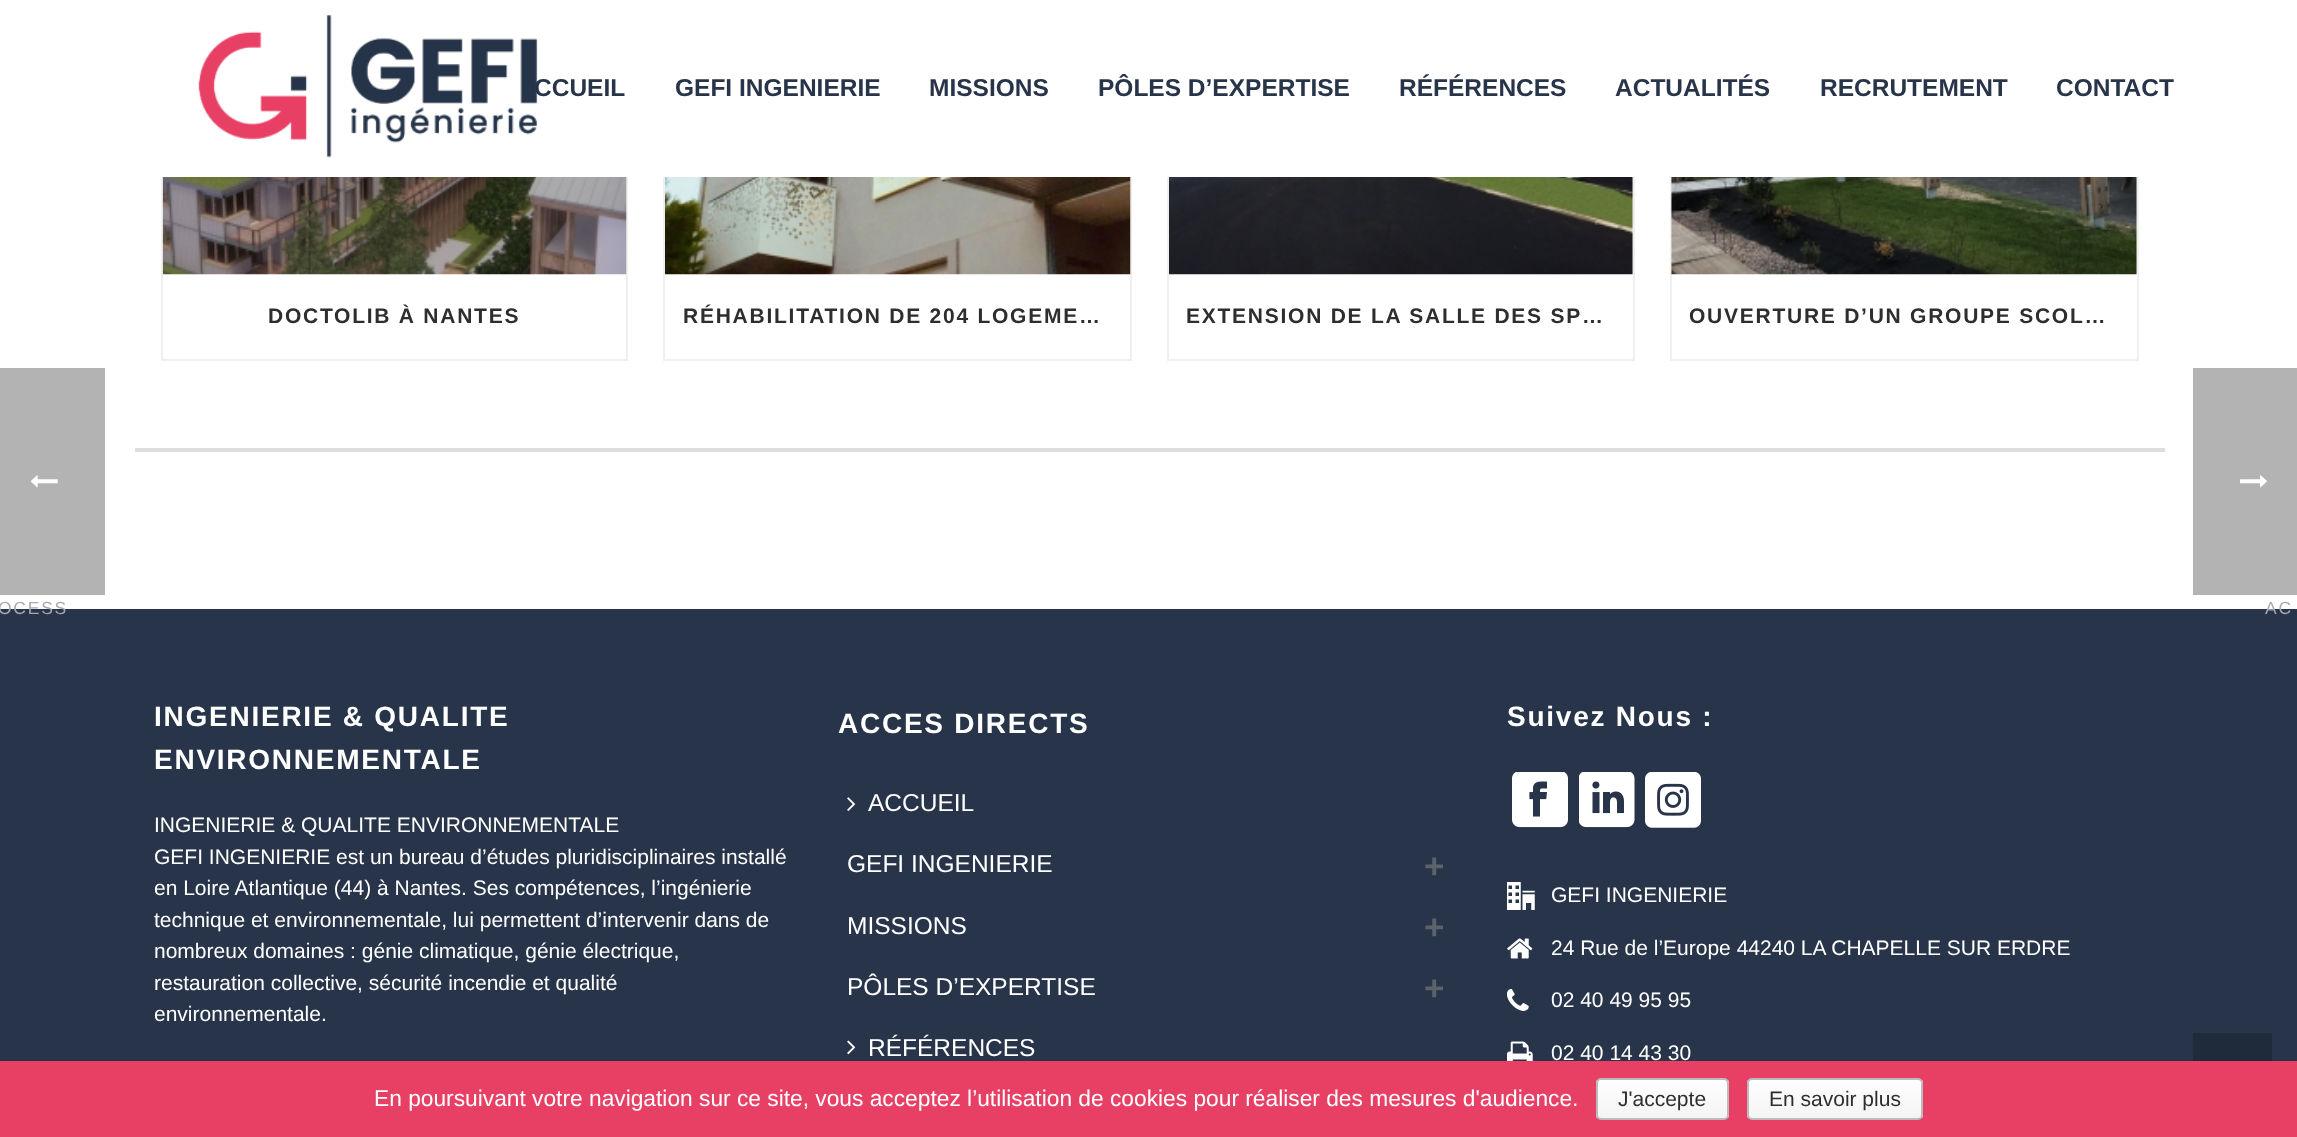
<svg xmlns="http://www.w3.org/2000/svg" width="2297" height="1137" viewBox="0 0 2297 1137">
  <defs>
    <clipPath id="clip1"><rect x="1596" y="1078" width="133" height="42" rx="5"/></clipPath>
    <linearGradient id="g1" gradientUnits="userSpaceOnUse" x1="1663" y1="1080" x2="1663" y2="1118"><stop offset="0" stop-color="#fefefe"/><stop offset="1" stop-color="#f4f4f4"/></linearGradient>
    <clipPath id="clip2"><rect x="1747" y="1078" width="176" height="42" rx="5"/></clipPath>
    <linearGradient id="g2" gradientUnits="userSpaceOnUse" x1="1835" y1="1080" x2="1835" y2="1118"><stop offset="0" stop-color="#fefefe"/><stop offset="1" stop-color="#f4f4f4"/></linearGradient>
  </defs>
  <rect width="100%" height="100%" fill="#fff"/>
  <path d="M0 368h105v227H0z" fill="#b3b3b3"/>
  <image x="30" y="475" width="28" height="13" href="img/1.png"/>
  <path d="M162 -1h465v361H162z" fill="none" stroke="#efefef" stroke-width="2"/>
  <path d="M664 -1h467v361H664z" fill="none" stroke="#efefef" stroke-width="2"/>
  <path d="M1168 -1h466v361H1168z" fill="none" stroke="#efefef" stroke-width="2"/>
  <path d="M1671 -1h467v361H1671z" fill="none" stroke="#efefef" stroke-width="2"/>
  <path d="M161 0h1978v177H161z" fill="#fff"/>
  <path d="M135 448h2030v4H135z" fill="#ddd"/>
  <image x="162" y="177" width="465" height="98" href="img/3.png"/>
  <image x="665" y="177" width="466" height="98" href="img/4.png"/>
  <image x="1169" y="177" width="464" height="98" href="img/5.png"/>
  <image x="1671" y="177" width="466" height="98" href="img/6.png"/>
  <path d="M0 609h2297v452H0z" fill="#273449"/>
  <image x="847" y="797" width="9" height="14" href="img/7.png"/>
  <image x="847" y="1040" width="9" height="15" href="img/8.png"/>
  <image x="1512" y="772" width="56" height="56" href="img/9.png"/>
  <image x="1579" y="772" width="56" height="56" href="img/10.png"/>
  <image x="1645" y="772" width="56" height="56" href="img/11.png"/>
  <image x="1507" y="882" width="28" height="28" href="img/12.png"/>
  <image x="1507" y="938" width="26" height="21" href="img/13.png"/>
  <image x="1507" y="989" width="22" height="22" href="img/14.png"/>
  <image x="1507" y="1041" width="26" height="20" href="img/15.png"/>
  <path d="M2193 368h104v227H2193z" fill="#b3b3b3"/>
  <image x="2240" y="475" width="27" height="13" href="img/16.png"/>
  <path d="M2193 1033h79v28H2193z" fill="#1f2a3a"/>
  <path d="M0 1061h2297v76H0z" fill="#e83f64"/>
  <g clip-path="url(#clip1)">
    <path d="M1596 1080h133v38H1596z" fill="url(#g1)"/>
  </g>
  <rect x="1597" y="1079" width="131" height="40" rx="4" fill="none" stroke="#bbb" stroke-width="2"/>
  <g clip-path="url(#clip2)">
    <path d="M1747 1080h176v38H1747z" fill="url(#g2)"/>
  </g>
  <rect x="1748" y="1079" width="174" height="40" rx="4" fill="none" stroke="#bbb" stroke-width="2"/>
  <text x="-2" y="614" font-family="Liberation Sans" font-size="17.5" letter-spacing="1.75" fill="#a5aab3">OCESS</text>
  <text x="534" y="96" font-family="Liberation Sans" font-size="24.5" font-weight="bold" fill="#273449">CCUEIL</text>
  <image x="198" y="15" width="340" height="143" href="img/2.png"/>
  <g font-family="Liberation Sans" font-size="24.5" font-weight="bold" fill="#273449">
    <text x="675" y="96">GEFI INGENIERIE</text>
    <text x="929" y="96">MISSIONS</text>
    <text x="1098" y="96">PÔLES D’EXPERTISE</text>
    <text x="1399" y="96">RÉFÉRENCES</text>
    <text x="1615" y="96">ACTUALITÉS</text>
    <text x="1820" y="96">RECRUTEMENT</text>
    <text x="2056" y="96">CONTACT</text>
  </g>
  <g font-family="Liberation Sans" font-size="21" font-weight="bold" letter-spacing="1.75" fill="#2e2e2e">
    <text x="268" y="323">DOCTOLIB À NANTES</text>
    <text x="683" y="323">RÉHABILITATION DE 204 LOGEME…</text>
    <text x="1186" y="323">EXTENSION DE LA SALLE DES SP…</text>
    <text x="1689" y="323">OUVERTURE D’UN GROUPE SCOL…</text>
  </g>
  <g font-family="Liberation Sans" font-size="28" font-weight="bold" letter-spacing="1.75" fill="#fff">
    <text x="154" y="726">INGENIERIE &amp; QUALITE</text>
    <text x="154" y="769">ENVIRONNEMENTALE</text>
  </g>
  <g font-family="Liberation Sans" font-size="21" fill="#fff">
    <text x="154" y="832">INGENIERIE &amp; QUALITE ENVIRONNEMENTALE</text>
    <text x="154" y="864">GEFI INGENIERIE est un bureau d’études pluridisciplinaires installé</text>
    <text x="154" y="895">en Loire Atlantique (44) à Nantes. Ses compétences, l’ingénierie</text>
    <text x="154" y="927">technique et environnementale, lui permettent d’intervenir dans de</text>
    <text x="154" y="958">nombreux domaines : génie climatique, génie électrique,</text>
    <text x="154" y="990">restauration collective, sécurité incendie et qualité</text>
    <text x="154" y="1021">environnementale.</text>
  </g>
  <text x="838" y="733" font-family="Liberation Sans" font-size="28" font-weight="bold" letter-spacing="1.75" fill="#fff">ACCES DIRECTS</text>
  <g font-family="Liberation Sans" font-size="24.5" fill="#fff">
    <text x="868" y="811">ACCUEIL</text>
    <text x="847" y="872">GEFI INGENIERIE</text>
  </g>
  <text x="1424" y="878" font-family="Liberation Sans" font-size="35" font-weight="bold" fill="#5c626a">+</text>
  <text x="847" y="934" font-family="Liberation Sans" font-size="24.5" fill="#fff">MISSIONS</text>
  <text x="1424" y="939" font-family="Liberation Sans" font-size="35" font-weight="bold" fill="#5c626a">+</text>
  <text x="847" y="995" font-family="Liberation Sans" font-size="24.5" fill="#fff">PÔLES D’EXPERTISE</text>
  <text x="1424" y="1000" font-family="Liberation Sans" font-size="35" font-weight="bold" fill="#5c626a">+</text>
  <text x="868" y="1056" font-family="Liberation Sans" font-size="24.5" fill="#fff">RÉFÉRENCES</text>
  <text x="1507" y="726" font-family="Liberation Sans" font-size="28" font-weight="bold" letter-spacing="1.75" fill="#fff">Suivez Nous :</text>
  <g font-family="Liberation Sans" font-size="21" fill="#fff">
    <text x="1551" y="902">GEFI INGENIERIE</text>
    <text x="1551" y="955">24 Rue de l’Europe 44240 LA CHAPELLE SUR ERDRE</text>
    <text x="1551" y="1007">02 40 49 95 95</text>
    <text x="1551" y="1060">02 40 14 43 30</text>
  </g>
  <text x="2265" y="614" font-family="Liberation Sans" font-size="17.5" letter-spacing="1.75" fill="#a5aab3">AC</text>
  <text x="374" y="1106" font-family="Liberation Sans" font-size="22.75" fill="#fff">En poursuivant votre navigation sur ce site, vous acceptez l’utilisation de cookies pour réaliser des mesures d'audience.</text>
  <g font-family="Liberation Sans" font-size="21" fill="#2e2e2e">
    <text x="1618" y="1106">J'accepte</text>
    <text x="1769" y="1106">En savoir plus</text>
  </g>
</svg>
